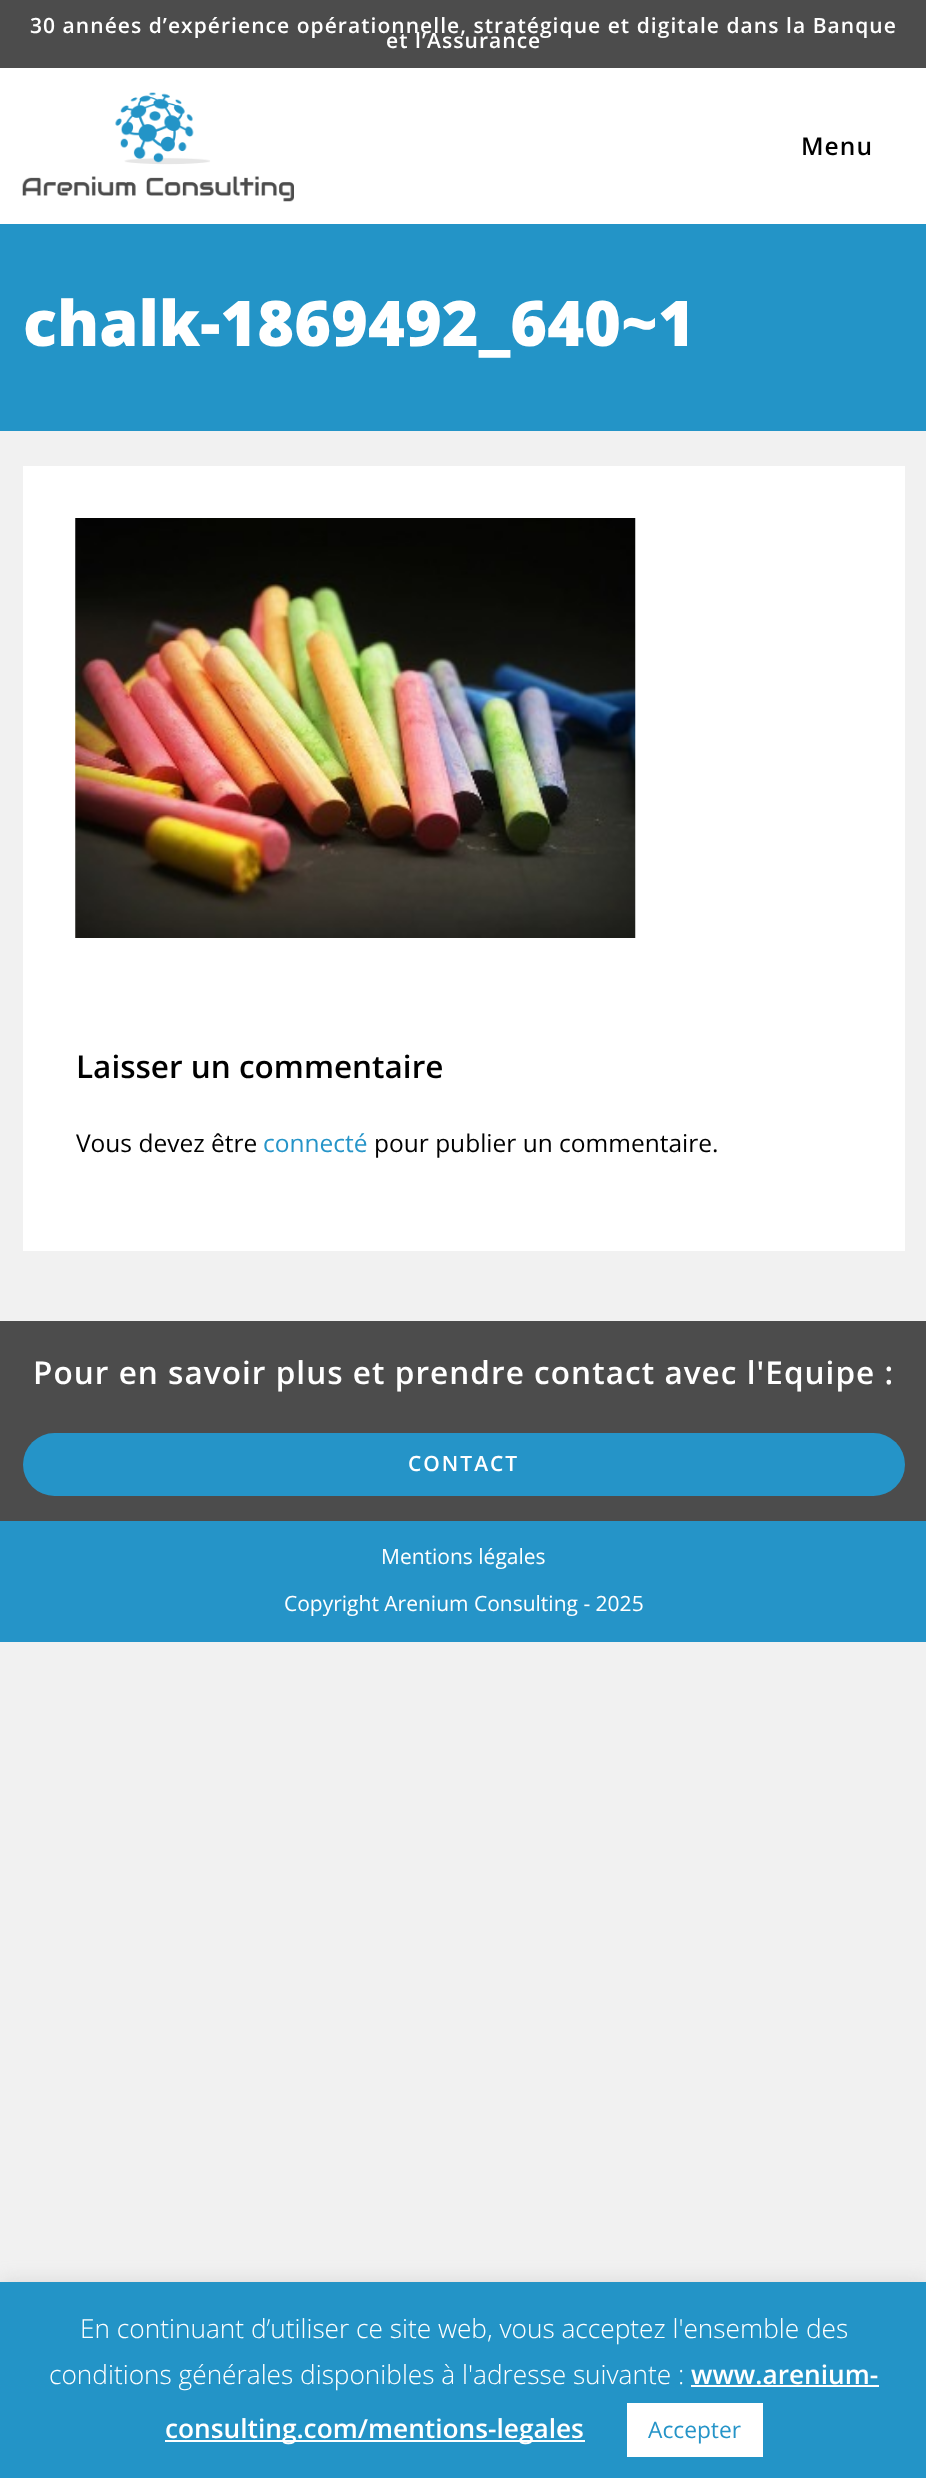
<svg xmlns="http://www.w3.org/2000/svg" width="926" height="2478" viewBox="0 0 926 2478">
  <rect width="100%" height="100%" fill="#f1f1f1"/>
  <path d="M0 0h926v68H0z" fill="#4c4c4c"/>
  <path d="M0 68h926v156H0z" fill="#fff"/>
  <image x="22" y="92" width="272" height="110" href="img/1.png"/>
  <path d="M0 224h926v207H0z" fill="#2394c7"/>
  <path d="M23 466h882v785H23z" fill="#fff"/>
  <image x="75" y="518" width="561" height="420" href="img/2.png"/>
  <path d="M0 1321h926v200H0z" fill="#4c4c4c"/>
  <rect x="23" y="1433" width="882" height="63" rx="31.5" fill="#2594c8"/>
  <path d="M0 1521h926v121H0z" fill="#2594c8"/>
  <path d="M0 2280h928v196H0z" fill="#acabab4d" filter="blur(9px)"/>
  <path d="M0 2282h926v196H0z" fill="#2394c7"/>
  <path d="M691 2385h188v2H691z" fill="#fff"/>
  <path d="M165 2440h420v2H165z" fill="#fff"/>
  <path d="M627 2403h136v54H627z" fill="#fff"/>
  <g font-family="Open Sans" font-size="21" font-weight="600" letter-spacing="1.05" fill="#fff">
    <text x="30" y="33">30 années d’expérience opérationnelle, stratégique et digitale dans la Banque</text>
    <text x="386" y="48">et l’Assurance</text>
  </g>
  <text x="801" y="155" font-family="Open Sans" font-size="24.5" font-weight="600" letter-spacing="1.05" fill="#000">Menu</text>
  <text x="23" y="346" font-family="Open Sans" font-size="63" font-weight="800" fill="#fff">chalk-1869492_640~1</text>
  <text x="76" y="1078" font-family="Open Sans" font-size="31.5" font-weight="600" fill="#000">Laisser un commentaire</text>
  <text x="76" y="1152" font-family="Open Sans" font-size="24.5" fill="#000">Vous devez être</text>
  <text x="263" y="1152" font-family="Open Sans" font-size="24.5" fill="#2594c8">connecté</text>
  <text x="374" y="1152" font-family="Open Sans" font-size="24.5" fill="#000">pour publier un commentaire.</text>
  <text x="33" y="1384" font-family="Open Sans" font-size="31.5" font-weight="600" letter-spacing="1.05" fill="#fff">Pour en savoir plus et prendre contact avec l'Equipe :</text>
  <text x="408" y="1471" font-family="Open Sans" font-size="21" font-weight="600" letter-spacing="2" fill="#fff">CONTACT</text>
  <g font-family="Open Sans" font-size="21" fill="#fff">
    <text x="381" y="1564">Mentions légales</text>
    <text x="284" y="1611">Copyright Arenium Consulting - 2025</text>
  </g>
  <g font-family="Open Sans" font-size="26.25" font-weight="300" fill="#fff">
    <text x="80" y="2338">En continuant d’utiliser ce site web, vous acceptez l'ensemble des</text>
    <text x="49" y="2384">conditions générales disponibles à l'adresse suivante :</text>
  </g>
  <g font-family="Open Sans" font-size="26.25" font-weight="600" fill="#fff">
    <text x="691" y="2384">www.arenium-</text>
    <text x="165" y="2438">consulting.com/mentions-legales</text>
  </g>
  <text x="648" y="2438" font-family="Open Sans" font-size="22.75" fill="#2594c8">Accepter</text>
</svg>
